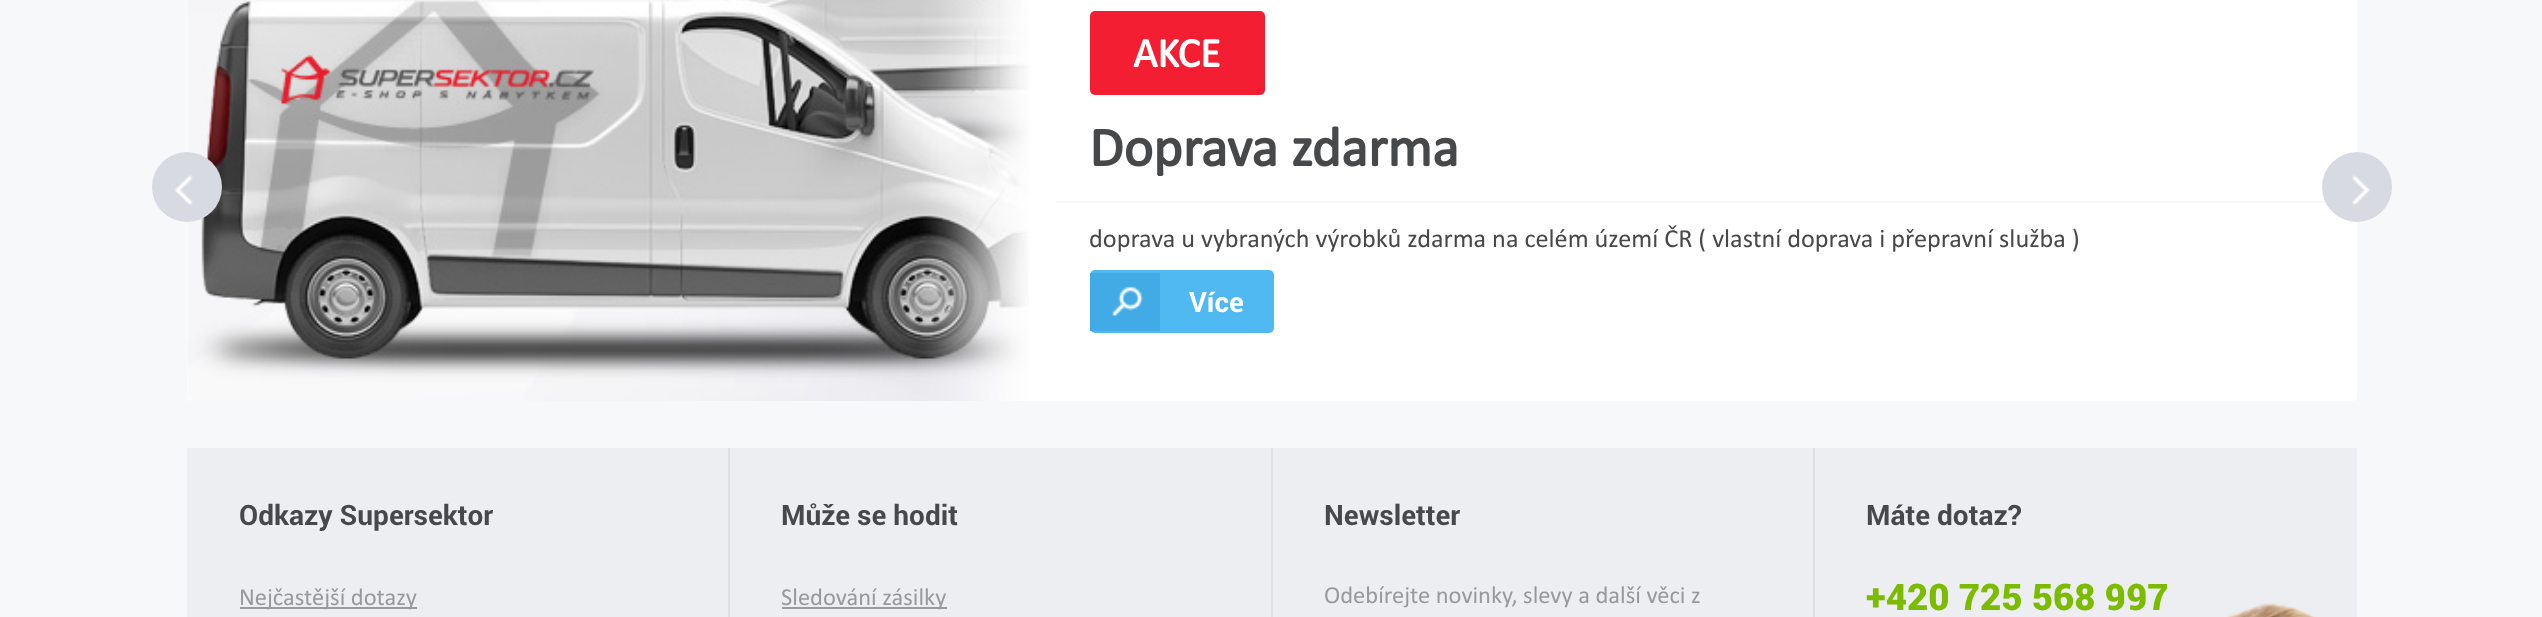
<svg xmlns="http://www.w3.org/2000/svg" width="2542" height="617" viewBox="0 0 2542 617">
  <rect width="100%" height="100%" fill="#f7f8f9"/>
  <rect x="187" y="-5" width="2170" height="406" rx="5" fill="#fff"/>
  <image x="187" y="0" width="842" height="401" href="img/2.png"/>
  <circle cx="187" cy="187" r="35" fill="#d7dae1"/>
  <image x="174" y="175" width="19" height="30" href="img/1.png"/>
  <rect x="1090" y="11" width="175" height="84" rx="5" fill="#f41e32"/>
  <path d="M1055 201h1271v2H1055z" fill="#f7f8f9"/>
  <rect x="1090" y="270" width="184" height="63" rx="5" fill="#51b9f2"/>
  <path d="M1090 273h70v58H1090z" fill="#42abe5"/>
  <image x="1111" y="286" width="32" height="30" href="img/3.png"/>
  <circle cx="2357" cy="187" r="35" fill="#d7dae1"/>
  <image x="2352" y="175" width="18" height="31" href="img/4.png"/>
  <path d="M187 448h2170v169H187z" fill="#edeef1"/>
  <path d="M728 448h2v169H728z" fill="#dde0e6"/>
  <path d="M240 607h177v2H240z" fill="#999"/>
  <path d="M1271 448h2v169H1271z" fill="#dde0e6"/>
  <path d="M782 607h165v2H782z" fill="#999"/>
  <path d="M1813 448h2v169H1813z" fill="#dde0e6"/>
  <image x="2226" y="603" width="90" height="14" href="img/5.png"/>
  <text x="1133" y="67" font-family="Calibri" font-size="42" font-weight="bold" fill="#fff">AKCE</text>
  <text x="1089" y="166" font-family="Calibri" font-size="56" font-weight="bold" fill="#47484a">Doprava zdarma</text>
  <text x="1089" y="247" font-family="Calibri" font-size="26.25" fill="#47484a">doprava u vybraných výrobků zdarma na celém území ČR ( vlastní doprava i přepravní služba )</text>
  <text x="1189" y="312" font-family="Roboto" font-size="28" font-weight="bold" fill="#fff">Více</text>
  <text x="239" y="525" font-family="Roboto" font-size="28" font-weight="bold" fill="#47484a">Odkazy Supersektor</text>
  <text x="239" y="605" font-family="Calibri" font-size="24.5" fill="#999">Nejčastější dotazy</text>
  <text x="781" y="525" font-family="Roboto" font-size="28" font-weight="bold" fill="#47484a">Může se hodit</text>
  <text x="781" y="605" font-family="Calibri" font-size="24.5" fill="#999">Sledování zásilky</text>
  <text x="1324" y="525" font-family="Roboto" font-size="28" font-weight="bold" fill="#47484a">Newsletter</text>
  <text x="1324" y="603" font-family="Calibri" font-size="24.5" fill="#999">Odebírejte novinky, slevy a další věci z</text>
  <text x="1866" y="525" font-family="Roboto" font-size="28" font-weight="bold" fill="#47484a">Máte dotaz?</text>
  <text x="1866" y="610" font-family="Roboto" font-size="36.75" font-weight="900" fill="#7cbc00">+420 725 568 997</text>
</svg>
